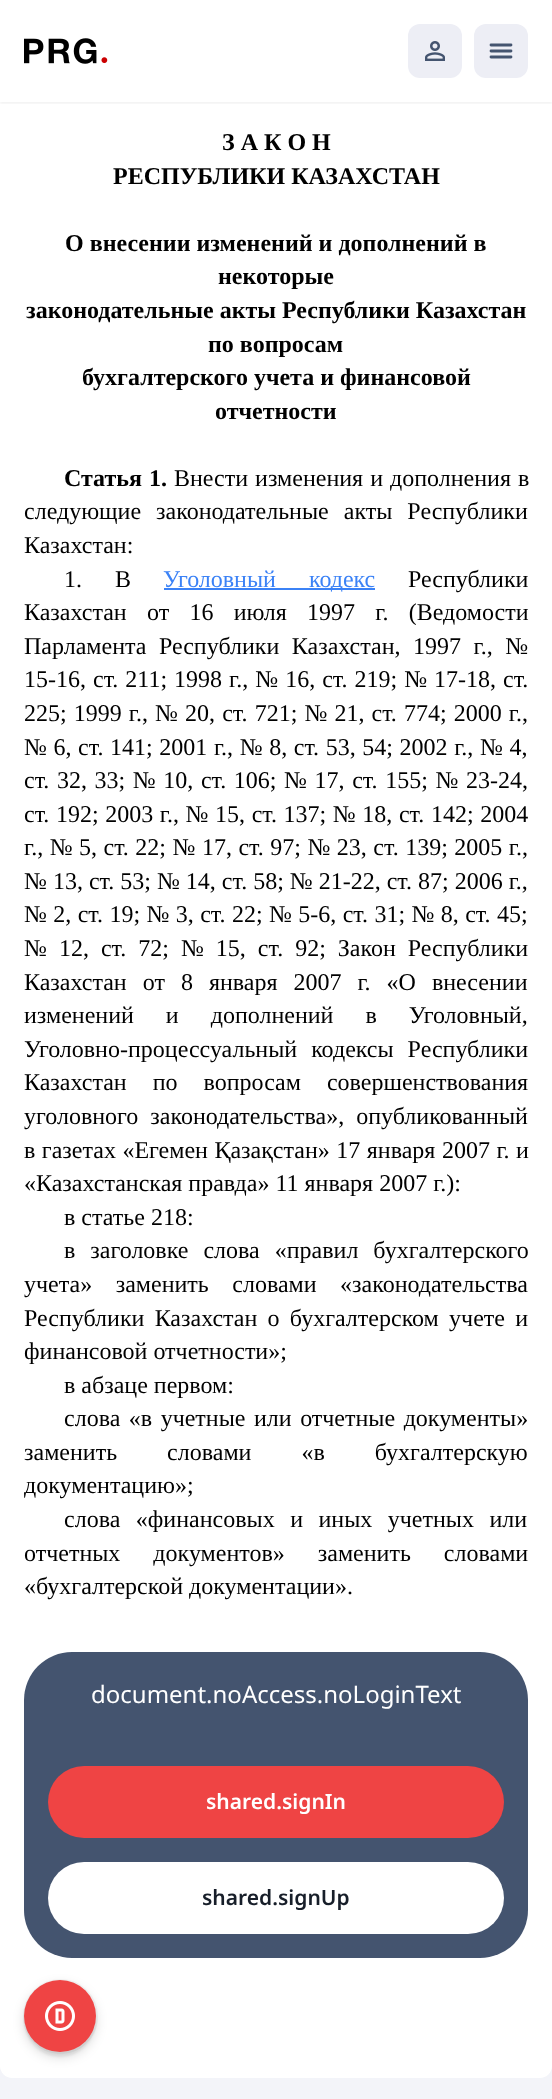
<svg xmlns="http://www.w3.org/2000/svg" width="552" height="2099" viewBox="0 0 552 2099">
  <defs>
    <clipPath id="clip1"><path d="M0 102h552v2H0z"/></clipPath>
  </defs>
  <rect width="100%" height="100%" fill="#fff"/>
  <path d="M0 2066h552v33H0z" fill="#f3f4f9"/>
  <path d="M0 102H552V2066C552 2072.5 546.5 2078 540 2078H12C5.5 2078 0 2072.5 0 2066Z" fill="#fff"/>
  <g clip-path="url(#clip1)">
    <path d="M0 2h552v102H0z" fill="#0000000d" filter="blur(1.5px)"/>
  </g>
  <image x="24" y="38" width="84" height="26" href="img/1.png"/>
  <rect x="408" y="24" width="54" height="54" rx="12" fill="#edeef5"/>
  <image x="425" y="41" width="20" height="20" href="img/2.png"/>
  <rect x="474" y="24" width="54" height="54" rx="12" fill="#edeef5"/>
  <path d="M491 45H511M491 51H511M491 57H511" fill="none" stroke="#44546f" stroke-width="2.8" stroke-linecap="round"/>
  <path d="M164 588h211v2H164z" fill="#3b82f6"/>
  <rect x="24" y="1652" width="504" height="306" rx="48" fill="#44546f"/>
  <rect x="48" y="1766" width="456" height="72" rx="36" fill="#ef4444"/>
  <rect x="48" y="1862" width="456" height="72" rx="36" fill="#fff"/>
  <circle cx="60.5" cy="2016.5" r="36.5" fill="none" stroke="#f5f5f5" stroke-width="2"/>
  <rect x="24" y="1985" width="72" height="72" rx="36" fill="#00000026" filter="blur(6px)"/>
  <rect x="24" y="1985" width="72" height="72" rx="36" fill="#0000000f" filter="blur(1px)"/>
  <circle cx="60" cy="2016" r="36" fill="#ef4444"/>
  <image x="45" y="2001" width="30" height="30" href="img/3.png"/>
  <g font-family="Liberation Serif" font-size="24" font-weight="bold" fill="#000">
    <text x="222" y="150">З А К О Н</text>
    <text x="113" y="184">РЕСПУБЛИКИ КАЗАХСТАН</text>
    <text x="65" y="251">О внесении изменений и дополнений в</text>
    <text x="218" y="284">некоторые</text>
    <text x="26" y="318">законодательные акты Республики Казахстан</text>
    <text x="208" y="352">по вопросам</text>
    <text x="82" y="385">бухгалтерского учета и финансовой</text>
    <text x="215" y="419">отчетности</text>
    <text x="64" y="486" word-spacing="1">Статья 1.</text>
  </g>
  <g font-family="Liberation Serif" font-size="24" fill="#000">
    <text x="174" y="486" word-spacing="1">Внести изменения и дополнения в</text>
    <text x="24" y="519" word-spacing="9">следующие законодательные акты Республики</text>
    <text x="24" y="553">Казахстан:</text>
    <text x="64" y="587" word-spacing="27">1. В</text>
  </g>
  <text x="163" y="587" word-spacing="27" font-family="Liberation Serif" font-size="24" fill="#3b82f6">Уголовный кодекс</text>
  <g font-family="Liberation Serif" font-size="24" fill="#000">
    <text x="408" y="587">Республики</text>
    <text x="24" y="620" word-spacing="14.25">Казахстан от 16 июля 1997 г. (Ведомости</text>
    <text x="24" y="654" word-spacing="6.5">Парламента Республики Казахстан, 1997 г., №</text>
    <text x="24" y="687" word-spacing="1">15-16, ст. 211; 1998 г., № 16, ст. 219; № 17-18, ст.</text>
    <text x="24" y="721" word-spacing="1.1">225; 1999 г., № 20, ст. 721; № 21, ст. 774; 2000 г.,</text>
    <text x="24" y="755" word-spacing="0.6">№ 6, ст. 141; 2001 г., № 8, ст. 53, 54; 2002 г., № 4,</text>
    <text x="24" y="788" word-spacing="1.6">ст. 32, 33; № 10, ст. 106; № 17, ст. 155; № 23-24,</text>
    <text x="24" y="822" word-spacing="0.6">ст. 192; 2003 г., № 15, ст. 137; № 18, ст. 142; 2004</text>
    <text x="24" y="855" word-spacing="0.5">г., № 5, ст. 22; № 17, ст. 97; № 23, ст. 139; 2005 г.,</text>
    <text x="24" y="889">№ 13, ст. 53; № 14, ст. 58; № 21-22, ст. 87; 2006 г.,</text>
    <text x="24" y="922" word-spacing="0.4">№ 2, ст. 19; № 3, ст. 22; № 5-6, ст. 31; № 8, ст. 45;</text>
    <text x="24" y="956" word-spacing="6">№ 12, ст. 72; № 15, ст. 92; Закон Республики</text>
    <text x="24" y="990" word-spacing="10">Казахстан от 8 января 2007 г. «О внесении</text>
    <text x="24" y="1023" word-spacing="26">изменений и дополнений в Уголовный,</text>
    <text x="24" y="1057" word-spacing="8">Уголовно-процессуальный кодексы Республики</text>
    <text x="24" y="1090" word-spacing="20">Казахстан по вопросам совершенствования</text>
    <text x="24" y="1124" word-spacing="6">уголовного законодательства», опубликованный</text>
    <text x="24" y="1158" word-spacing="0.5">в газетах «Егемен Қазақстан» 17 января 2007 г. и</text>
    <text x="24" y="1191">«Казахстанская правда» 11 января 2007 г.):</text>
    <text x="64" y="1225">в статье 218:</text>
    <text x="64" y="1258" word-spacing="9">в заголовке слова «правил бухгалтерского</text>
    <text x="24" y="1292" word-spacing="17.5">учета» заменить словами «законодательства</text>
    <text x="24" y="1326" word-spacing="4.25">Республики Казахстан о бухгалтерском учете и</text>
    <text x="24" y="1359">финансовой отчетности»;</text>
    <text x="64" y="1393">в абзаце первом:</text>
    <text x="64" y="1426" word-spacing="2.5">слова «в учетные или отчетные документы»</text>
    <text x="24" y="1460" word-spacing="44">заменить словами «в бухгалтерскую</text>
    <text x="24" y="1493">документацию»;</text>
    <text x="64" y="1527" word-spacing="9.5">слова «финансовых и иных учетных или</text>
    <text x="24" y="1561" word-spacing="27">отчетных документов» заменить словами</text>
    <text x="24" y="1594">«бухгалтерской документации».</text>
  </g>
  <text x="91" y="1703" font-family="Noto Sans" font-size="24" fill="#fff">document.noAccess.noLoginText</text>
  <text x="206" y="1809" font-family="Noto Sans" font-size="21" font-weight="600" fill="#fff">shared.signIn</text>
  <text x="202" y="1905" font-family="Noto Sans" font-size="21" font-weight="600" fill="#171e29">shared.signUp</text>
</svg>
